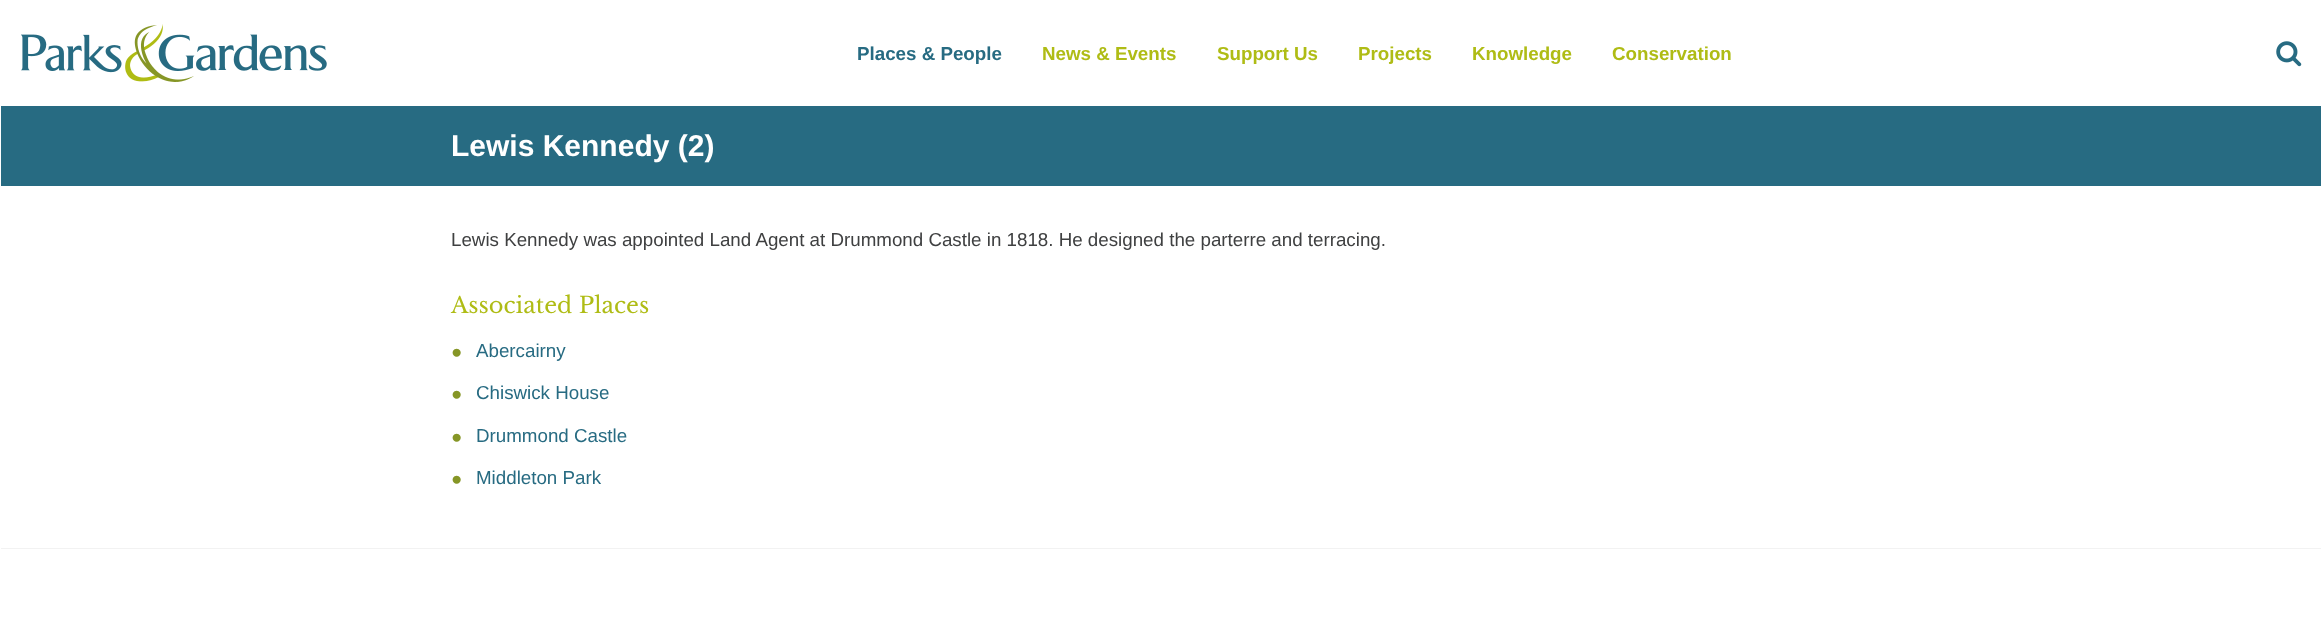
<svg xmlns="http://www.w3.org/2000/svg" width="2321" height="638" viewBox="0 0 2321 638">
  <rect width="100%" height="100%" fill="#fff"/>
  <image x="21" y="24" width="306" height="58" href="img/1.png"/>
  <image x="2276" y="41" width="26" height="26" href="img/2.png"/>
  <path d="M1 106h2320v80H1z" fill="#276b82"/>
  <path d="M1 548h2320v1H1z" fill="#f2f2f2"/>
  <text x="857" y="60" font-family="Liberation Sans" font-size="18.75" font-weight="bold" fill="#276b82">Places &amp; People</text>
  <g font-family="Liberation Sans" font-size="18.75" font-weight="bold" fill="#afbc15">
    <text x="1042" y="60">News &amp; Events</text>
    <text x="1217" y="60">Support Us</text>
    <text x="1358" y="60">Projects</text>
    <text x="1472" y="60">Knowledge</text>
    <text x="1612" y="60">Conservation</text>
  </g>
  <text x="451" y="156" font-family="Liberation Sans" font-size="30" font-weight="bold" fill="#fff">Lewis Kennedy (2)</text>
  <text x="451" y="246" font-family="Liberation Sans" font-size="18.75" fill="#3f4041">Lewis Kennedy was appointed Land Agent at Drummond Castle in 1818. He designed the parterre and terracing.</text>
  <text x="451" y="313" font-family="Libre Baskerville" font-size="22.5" fill="#afbc15">Associated Places</text>
  <text x="451" y="358" font-family="Liberation Sans" font-size="18.75" fill="#869626">●</text>
  <text x="476" y="357" font-family="Liberation Sans" font-size="18.75" fill="#276b82">Abercairny</text>
  <text x="451" y="400" font-family="Liberation Sans" font-size="18.75" fill="#869626">●</text>
  <text x="476" y="399" font-family="Liberation Sans" font-size="18.75" fill="#276b82">Chiswick House</text>
  <text x="451" y="443" font-family="Liberation Sans" font-size="18.75" fill="#869626">●</text>
  <text x="476" y="442" font-family="Liberation Sans" font-size="18.75" fill="#276b82">Drummond Castle</text>
  <text x="451" y="485" font-family="Liberation Sans" font-size="18.75" fill="#869626">●</text>
  <text x="476" y="484" font-family="Liberation Sans" font-size="18.75" fill="#276b82">Middleton Park</text>
</svg>
